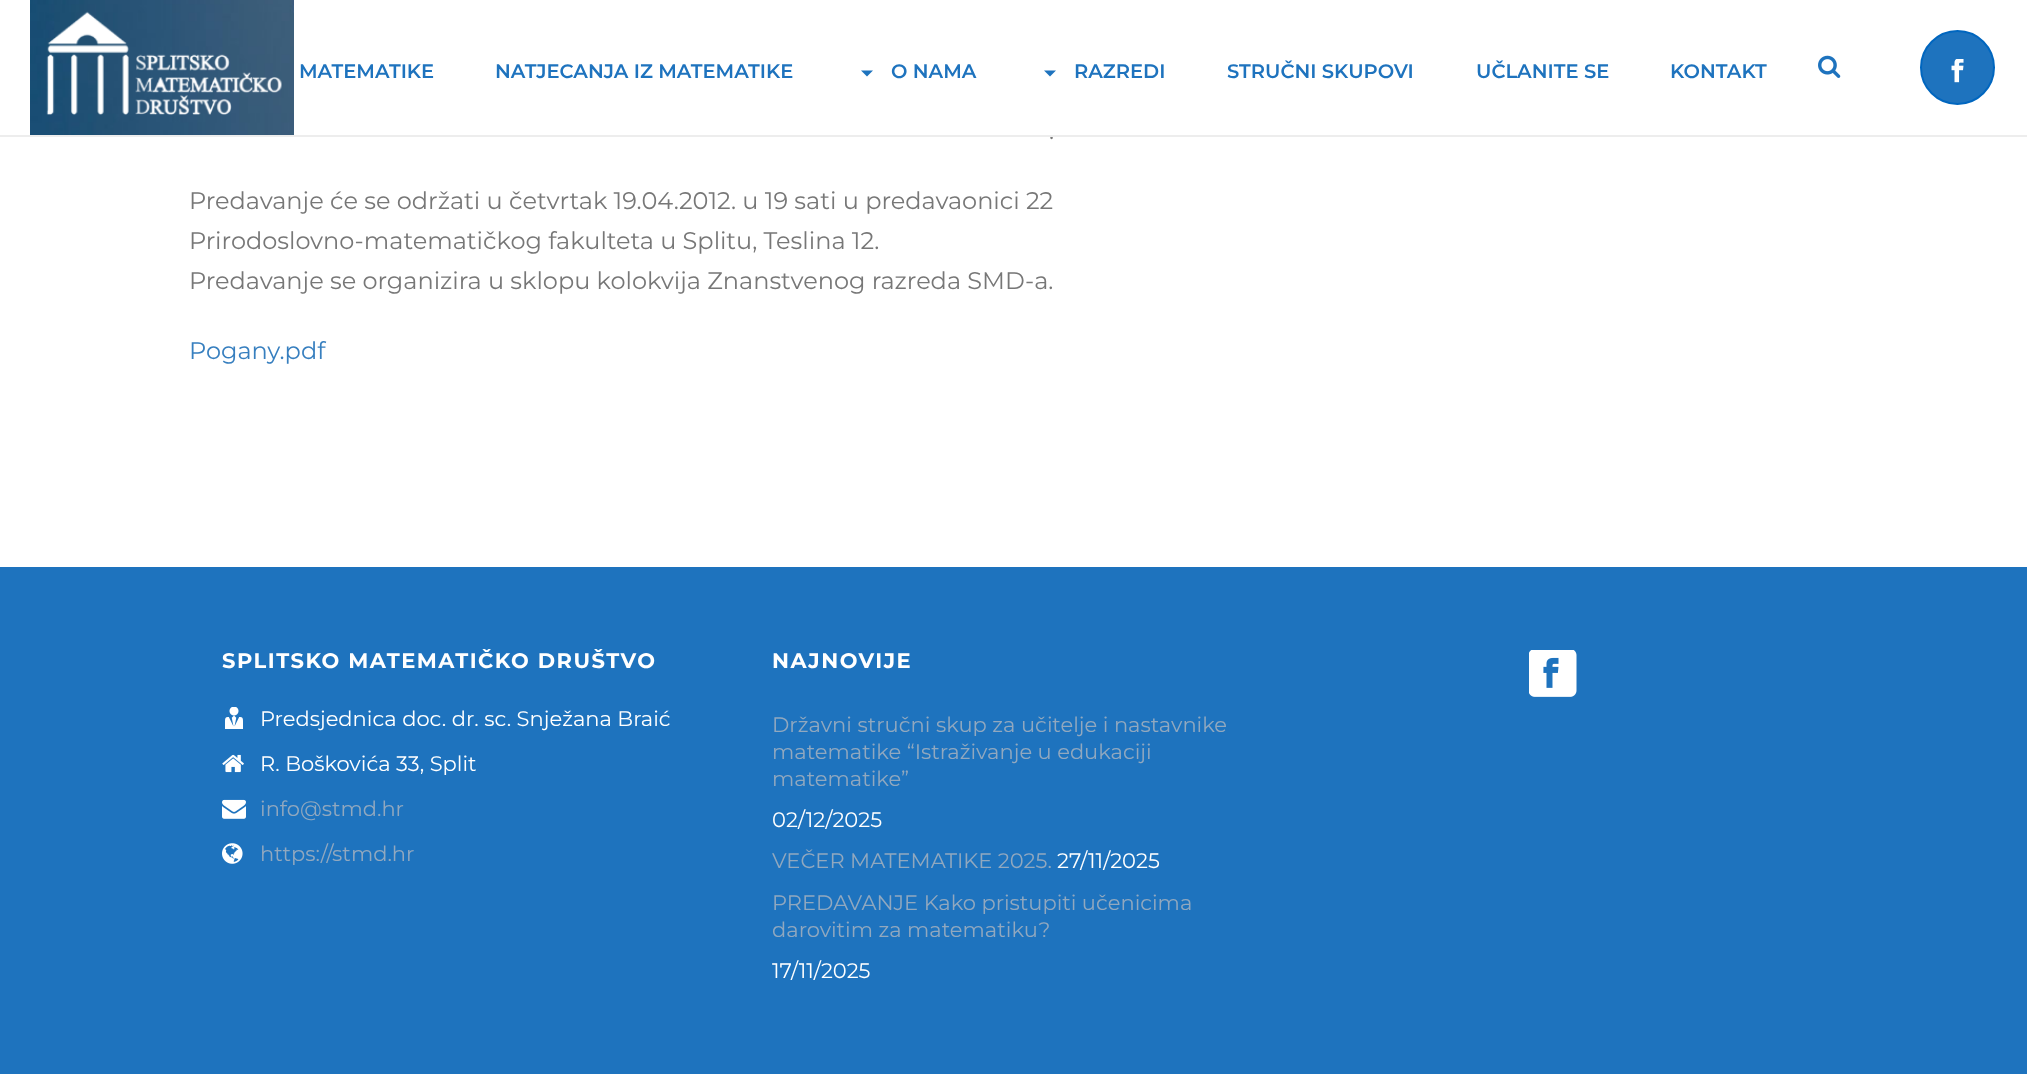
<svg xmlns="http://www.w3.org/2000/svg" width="2027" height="1074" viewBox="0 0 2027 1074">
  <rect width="100%" height="100%" fill="#fff"/>
  <image x="30" y="0" width="264" height="135" href="img/1.png"/>
  <path d="M861 70.5L867 76.5L873 70.5Z" fill="#1e73be"/>
  <path d="M1044 70.5L1050 76.5L1056 70.5Z" fill="#1e73be"/>
  <image x="1818" y="55" width="23" height="23" href="img/2.png"/>
  <circle cx="1957.5" cy="67.5" r="36.5" fill="#1e73be" stroke="#0066bf" stroke-width="2"/>
  <image x="1951" y="59" width="13" height="24" href="img/3.png"/>
  <path d="M0 567h2027v507H0z" fill="#1e73be"/>
  <image x="225" y="707" width="18" height="22" href="img/4.png"/>
  <image x="222" y="754" width="22" height="19" href="img/5.png"/>
  <image x="222" y="799" width="24" height="20" href="img/6.png"/>
  <image x="222" y="843" width="21" height="21" href="img/7.png"/>
  <image x="1529" y="650" width="48" height="47" href="img/8.png"/>
  <g font-family="Montserrat" font-size="19.5" font-weight="600" fill="#1e73be">
    <text x="299" y="78">MATEMATIKE</text>
    <text x="495" y="78">NATJECANJA IZ MATEMATIKE</text>
    <text x="891" y="78">O NAMA</text>
    <text x="1074" y="78">RAZREDI</text>
    <text x="1227" y="78">STRUČNI SKUPOVI</text>
    <text x="1476" y="78">UČLANITE SE</text>
    <text x="1670" y="78">KONTAKT</text>
  </g>
  <text x="1049" y="139" font-family="Montserrat" font-size="24" fill="#777">.</text>
  <path d="M0 135h2027v2H0z" fill="#ededed"/>
  <g font-family="Montserrat" font-size="24" fill="#777">
    <text x="189" y="209">Predavanje će se održati u četvrtak 19.04.2012. u 19 sati u predavaonici 22</text>
    <text x="189" y="249">Prirodoslovno-matematičkog fakulteta u Splitu, Teslina 12.</text>
    <text x="189" y="289">Predavanje se organizira u sklopu kolokvija Znanstvenog razreda SMD-a.</text>
  </g>
  <text x="189" y="359" font-family="Montserrat" font-size="24" fill="#377fbf">Pogany.pdf</text>
  <text x="222" y="668" font-family="Montserrat" font-size="21" font-weight="bold" letter-spacing="1.5" fill="#fff">SPLITSKO MATEMATIČKO DRUŠTVO</text>
  <g font-family="Montserrat" font-size="21" fill="#fff">
    <text x="260" y="726">Predsjednica doc. dr. sc. Snježana Braić</text>
    <text x="260" y="771">R. Boškovića 33, Split</text>
  </g>
  <g font-family="Montserrat" font-size="21" fill="#91a8bf">
    <text x="260" y="816">info@stmd.hr</text>
    <text x="260" y="861">https://stmd.hr</text>
  </g>
  <text x="772" y="668" font-family="Montserrat" font-size="21" font-weight="bold" letter-spacing="1.5" fill="#fff">NAJNOVIJE</text>
  <g font-family="Montserrat" font-size="21" fill="#91a8bf">
    <text x="772" y="732">Državni stručni skup za učitelje i nastavnike</text>
    <text x="772" y="759">matematike “Istraživanje u edukaciji</text>
    <text x="772" y="786">matematike”</text>
  </g>
  <text x="772" y="827" font-family="Montserrat" font-size="21" fill="#fff">02/12/2025</text>
  <text x="772" y="868" font-family="Montserrat" font-size="21" fill="#91a8bf">VEČER MATEMATIKE 2025.</text>
  <text x="1057" y="868" font-family="Montserrat" font-size="21" fill="#fff">27/11/2025</text>
  <g font-family="Montserrat" font-size="21" fill="#91a8bf">
    <text x="772" y="910">PREDAVANJE Kako pristupiti učenicima</text>
    <text x="772" y="937">darovitim za matematiku?</text>
  </g>
  <text x="772" y="978" font-family="Montserrat" font-size="21" fill="#fff">17/11/2025</text>
</svg>
